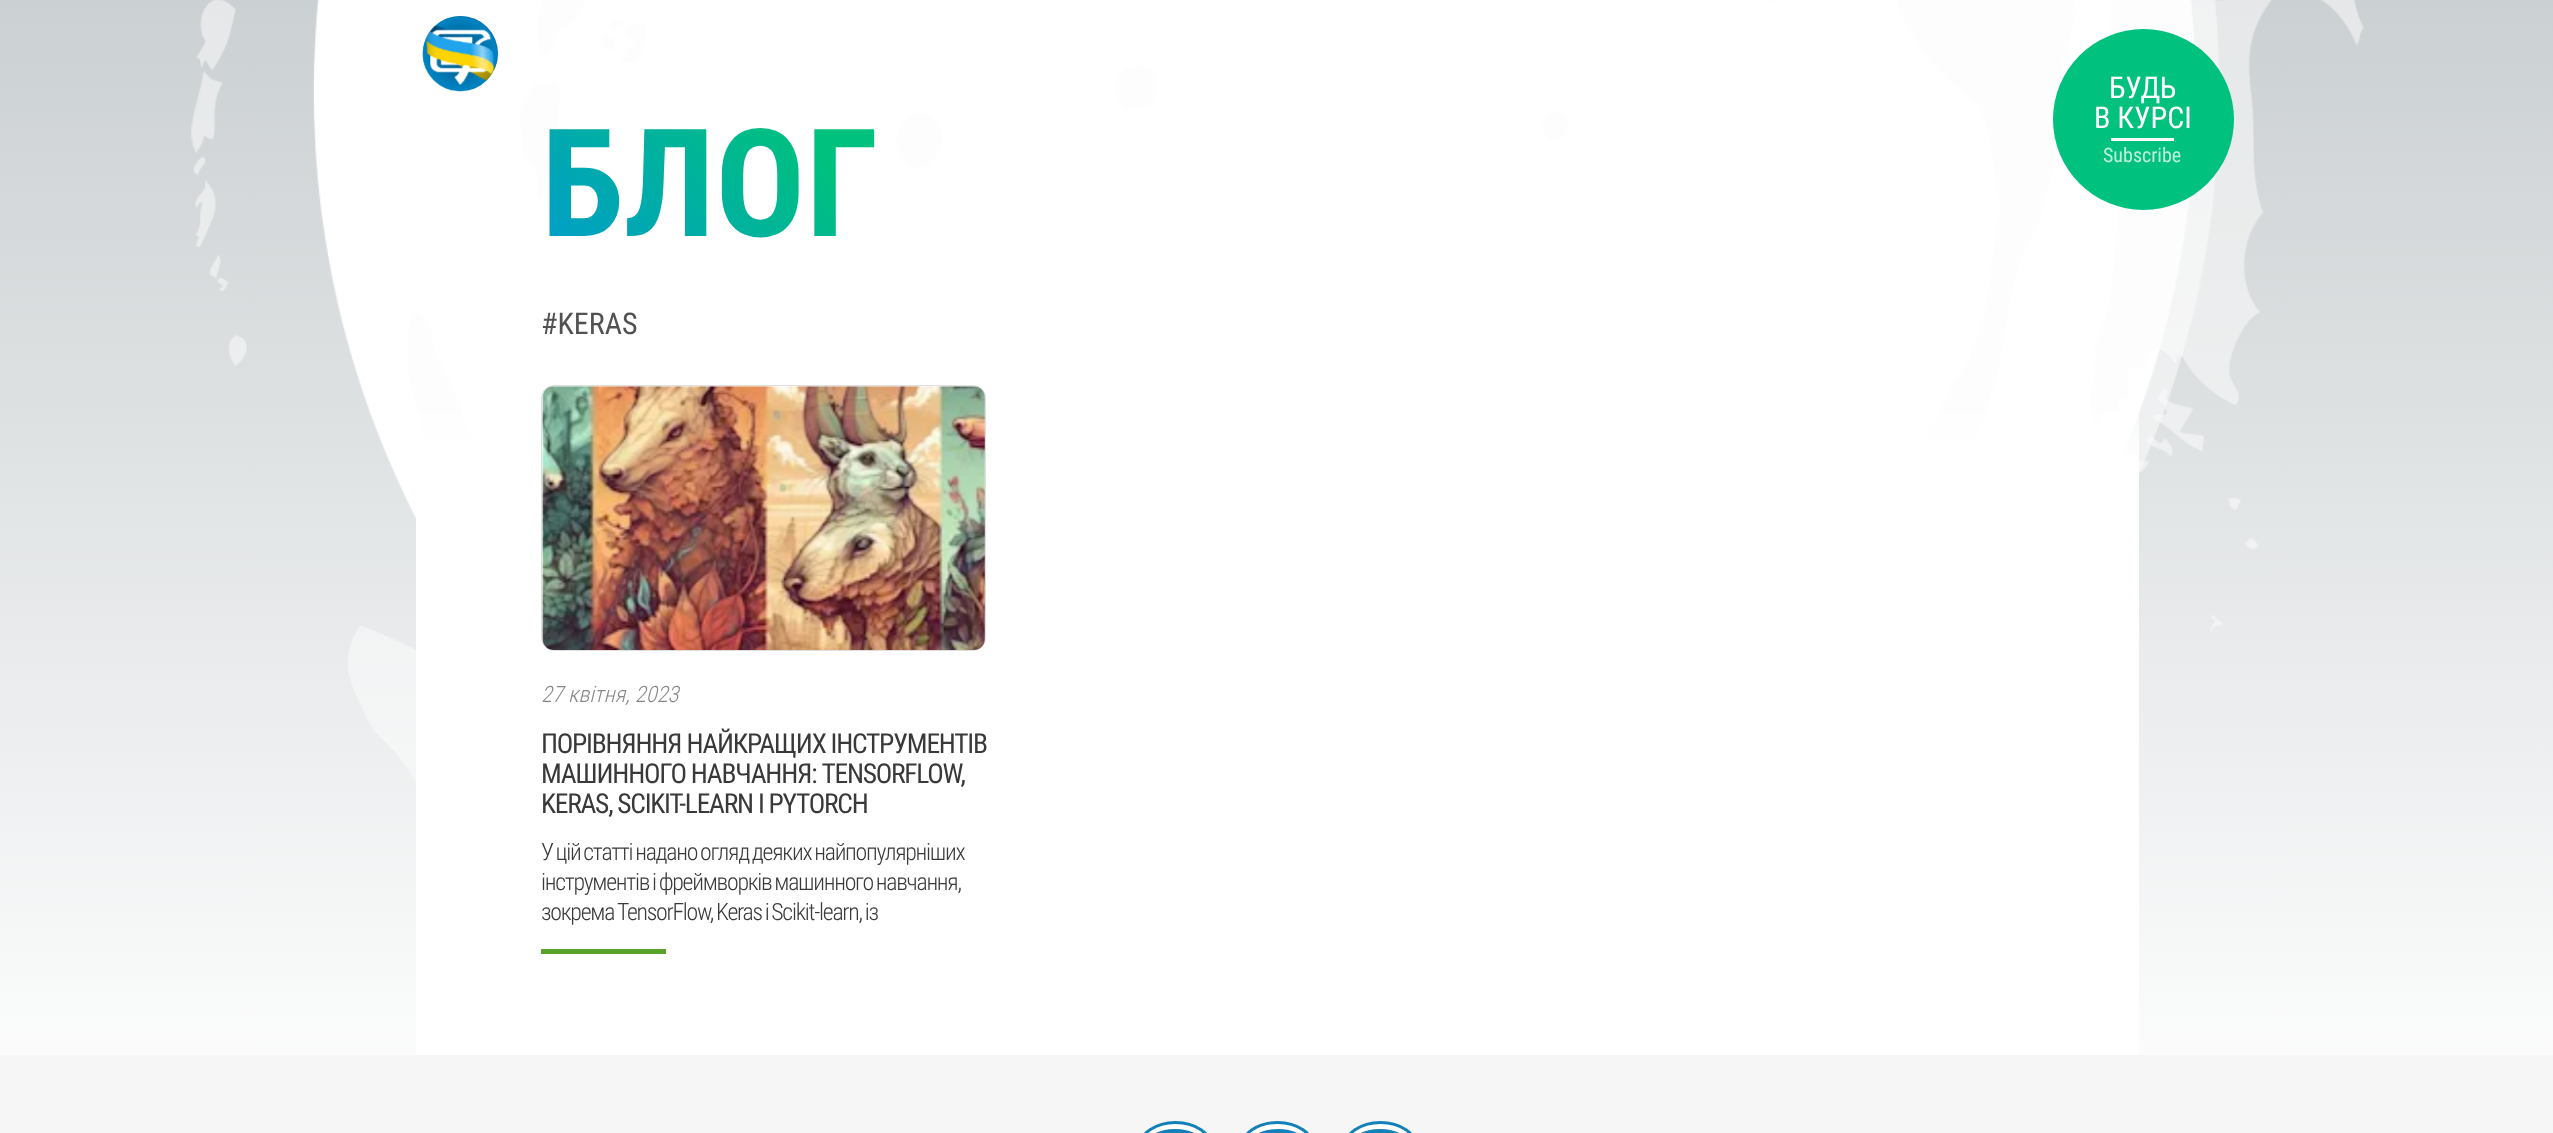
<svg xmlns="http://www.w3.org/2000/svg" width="2553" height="1133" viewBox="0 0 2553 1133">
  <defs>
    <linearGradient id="g1" gradientUnits="userSpaceOnUse" x1="588" y1="307" x2="832" y2="63"><stop offset="0" stop-color="#009ccb"/><stop offset="0.8" stop-color="#00c17d"/></linearGradient>
    <linearGradient id="g2" gradientUnits="userSpaceOnUse" x1="1277" y1="0" x2="1277" y2="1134"><stop offset="0" stop-color="#cbd0d2"/><stop offset="1" stop-color="#fff"/></linearGradient>
    <linearGradient id="g3" gradientUnits="userSpaceOnUse" x1="1278" y1="365" x2="1278" y2="1055"><stop offset="0" stop-color="#fff" stop-opacity="0"/><stop offset="0.14" stop-color="#fff"/><stop offset="1" stop-color="#fff"/></linearGradient>
  </defs>
  <rect width="100%" height="100%" fill="#fff"/>
  <path d="M0 0h2553v1055H0z" fill="url(#g2)"/>
  <image x="191" y="0" width="2173" height="784" href="img/1.png"/>
  <path d="M416 413h1723v642H416z" fill="url(#g3)"/>
  <rect x="541.5" y="385.5" width="444" height="265" rx="12.5" fill="none" stroke="#dedede"/>
  <image x="542" y="386" width="443" height="264" href="img/2.png"/>
  <path d="M541 949h125v5H541z" fill="#5ba22a"/>
  <circle cx="460.5" cy="53.5" r="37.5" fill="#0280bc"/>
  <circle cx="460.5" cy="53.5" r="37.5" fill="#0000001a"/>
  <image x="422" y="16" width="76" height="76" href="img/3.png"/>
  <circle cx="2143.5" cy="119.5" r="90.5" fill="#00c17d"/>
  <path d="M2111 138h63v3H2111z" fill="#fff"/>
  <path d="M0 1055h2553v78H0z" fill="#f6f6f6"/>
  <rect x="1139.5" y="1122.5" width="72" height="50" rx="36" fill="#fff" stroke="#1281b9" stroke-width="3"/>
  <rect x="1145" y="1129" width="60" height="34" rx="30" fill="#1281b9"/>
  <rect x="1241.5" y="1122.5" width="72" height="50" rx="36" fill="#fff" stroke="#1281b9" stroke-width="3"/>
  <rect x="1248" y="1129" width="60" height="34" rx="30" fill="#1281b9"/>
  <rect x="1344.5" y="1122.5" width="72" height="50" rx="36" fill="#fff" stroke="#1281b9" stroke-width="3"/>
  <rect x="1350" y="1129" width="60" height="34" rx="30" fill="#1281b9"/>
  <text x="541" y="236" font-family="Roboto Condensed" font-size="150" font-weight="bold" fill="url(#g1)">БЛОГ</text>
  <text x="541" y="334" font-family="Roboto Condensed" font-size="30" fill="#515151">#KERAS</text>
  <text x="541" y="702" font-family="Roboto Condensed" font-size="22.5" font-weight="300" font-style="italic" fill="#888">27 квітня, 2023</text>
  <g font-family="Roboto Condensed" font-size="27.5" letter-spacing="-1.25" fill="#393939">
    <text x="541" y="753">ПОРІВНЯННЯ НАЙКРАЩИХ ІНСТРУМЕНТІВ</text>
    <text x="541" y="783">МАШИННОГО НАВЧАННЯ: TENSORFLOW,</text>
    <text x="541" y="813">KERAS, SCIKIT-LEARN І PYTORCH</text>
  </g>
  <g font-family="Roboto Condensed" font-size="23.75" font-weight="300" letter-spacing="-1.25" fill="#393939">
    <text x="541" y="860" word-spacing="-1.25">У цій статті надано огляд деяких найпопулярніших</text>
    <text x="541" y="890" word-spacing="-1.25">інструментів і фреймворків машинного навчання,</text>
    <text x="541" y="920" word-spacing="-1.25">зокрема TensorFlow, Keras і Scikit-learn, із</text>
  </g>
  <g font-family="Roboto Condensed" font-size="30" fill="#fff">
    <text x="2109" y="98">БУДЬ</text>
    <text x="2094" y="128">В КУРСІ</text>
  </g>
  <text x="2103" y="162" font-family="Roboto Condensed" font-size="20" fill="#bff0df">Subscribe</text>
</svg>
